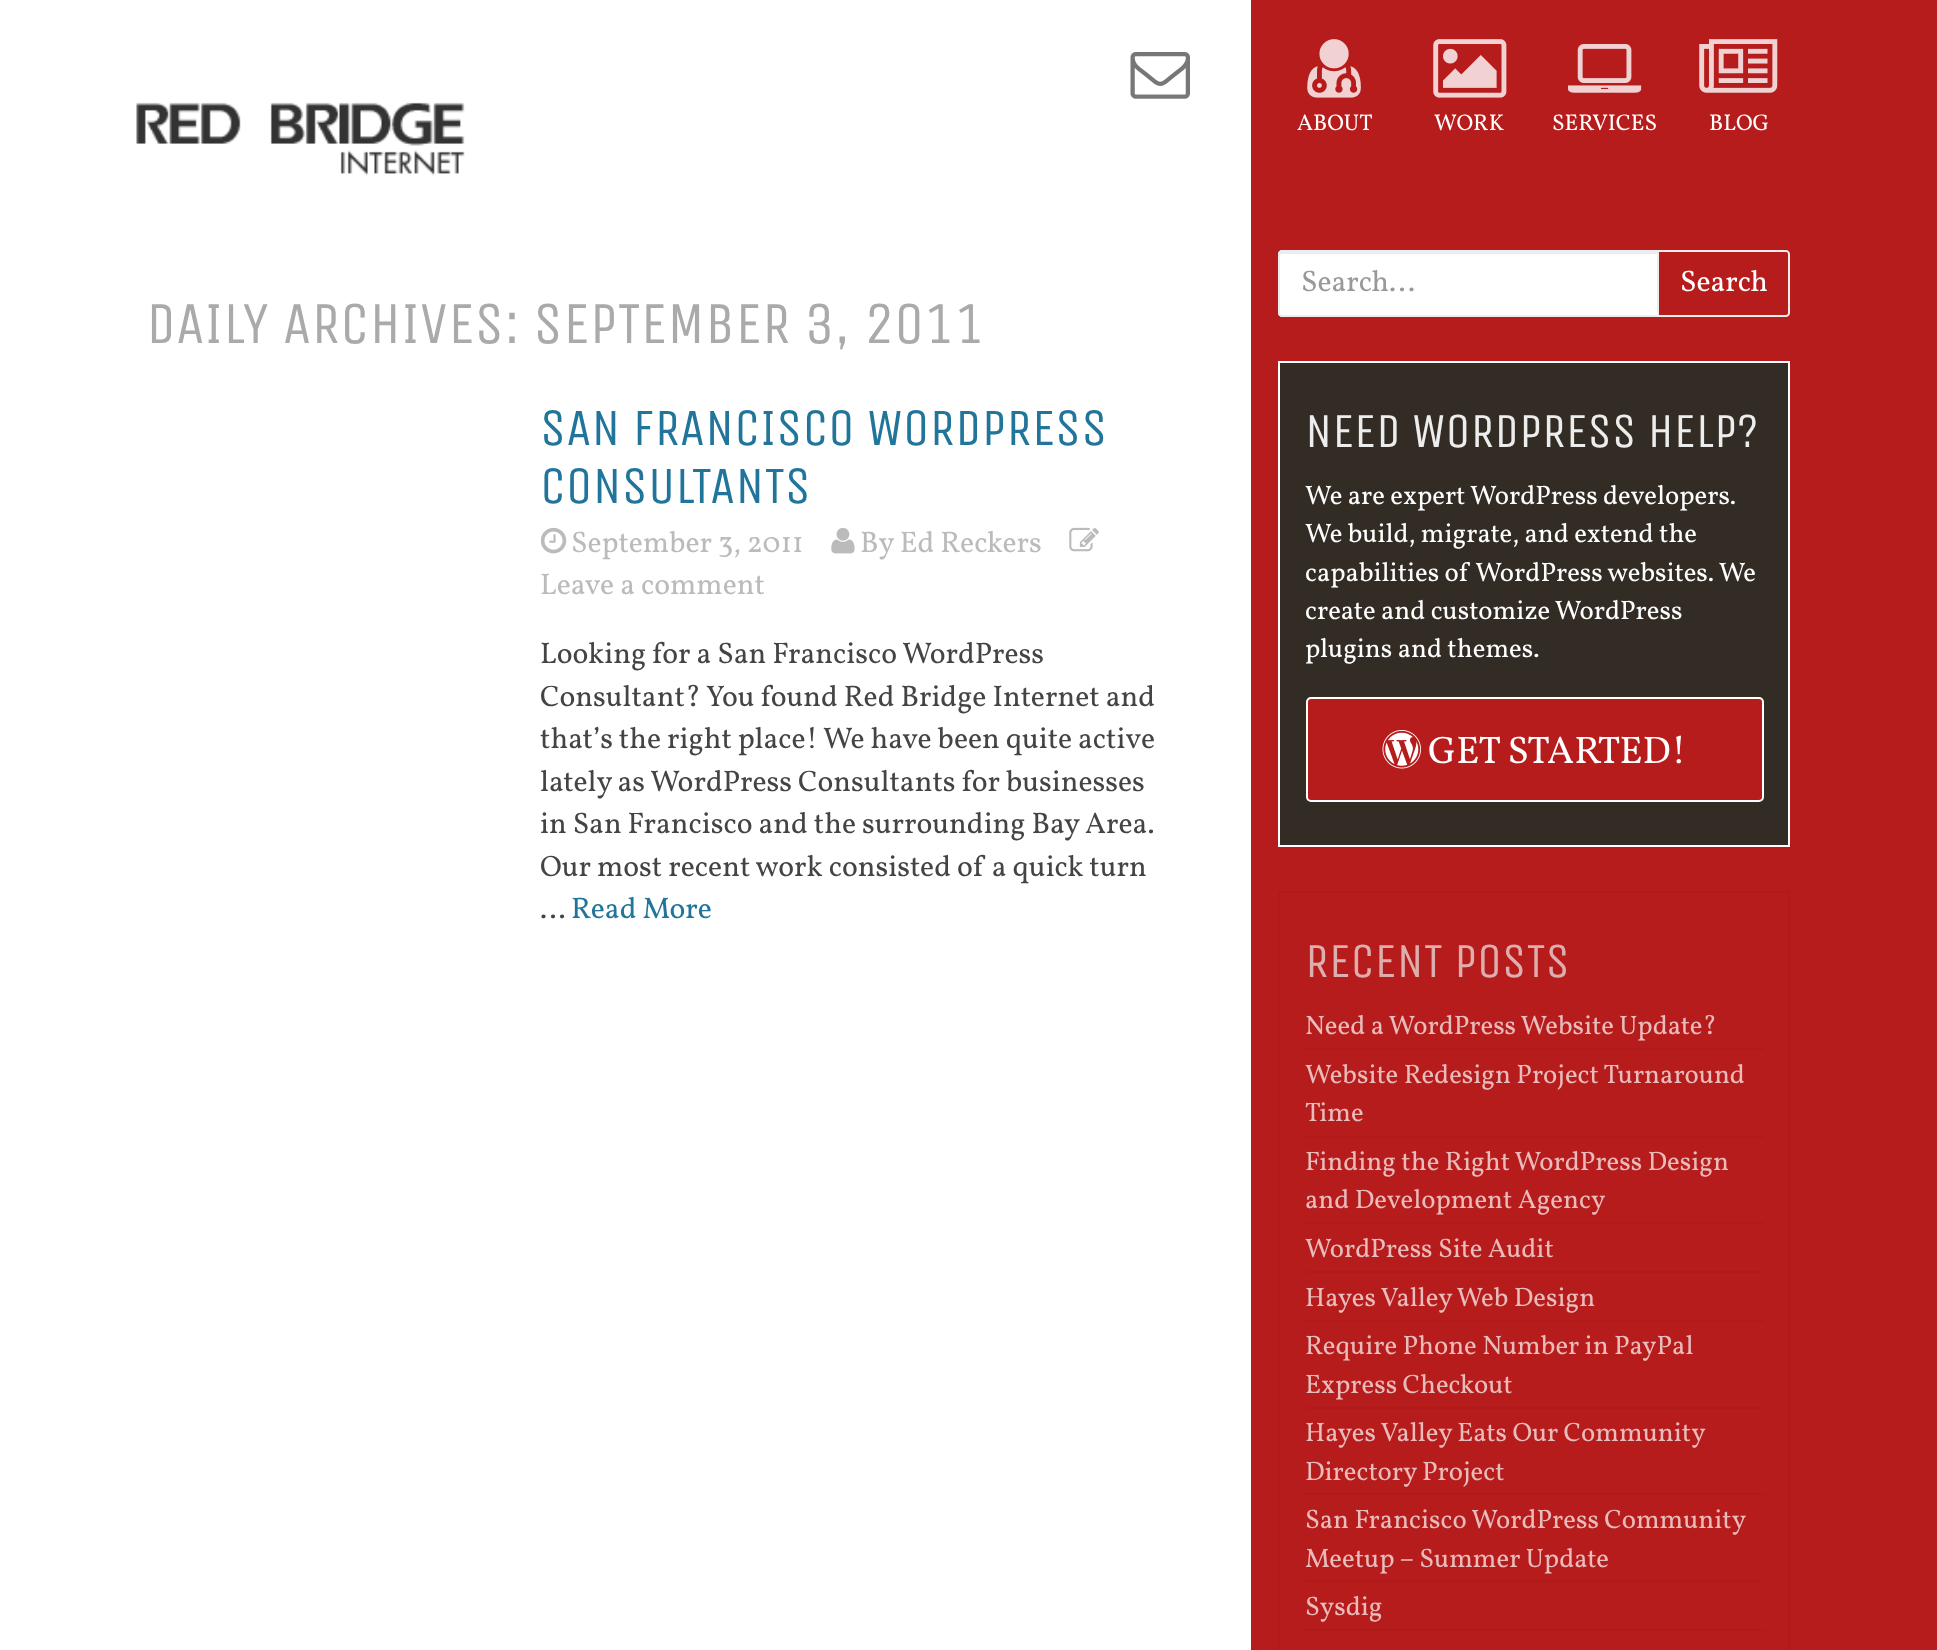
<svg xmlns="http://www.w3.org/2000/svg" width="1937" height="1650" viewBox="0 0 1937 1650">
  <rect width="100%" height="100%" fill="#fff"/>
  <path d="M1818 0h119v1650H1818z" fill="#b71c1c"/>
  <path d="M1817 0h1v1650H1817z" fill="#b71c1c"/>
  <image x="1130" y="52" width="60" height="47" href="img/1.png"/>
  <image x="136" y="102" width="329" height="74" href="img/2.png"/>
  <path d="M1251 0h566v1650H1251z" fill="#b71c1c"/>
  <image x="1307" y="39" width="54" height="59" href="img/3.png"/>
  <image x="1433" y="39" width="74" height="59" href="img/4.png"/>
  <image x="1568" y="44" width="74" height="49" href="img/5.png"/>
  <image x="1699" y="39" width="79" height="54" href="img/6.png"/>
  <image x="541" y="527" width="26" height="27" href="img/7.png"/>
  <image x="831" y="527" width="24" height="27" href="img/8.png"/>
  <image x="1069" y="527" width="30" height="25" href="img/9.png"/>
  <path d="M1658 251H1786C1787.5 251 1789 252.5 1789 254V313C1789 314.5 1787.5 316 1786 316H1658Z" fill="none" stroke="#ededed" stroke-width="2"/>
  <path d="M1282 250H1659V317H1282C1280 317 1278 315 1278 313V254C1278 252 1280 250 1282 250Z" fill="#fff"/>
  <path d="M1281 254H1657V252H1281C1280 252 1279 253 1279 254V256C1279 255 1280 254 1281 254Z" fill="#ececec"/>
  <path d="M1282 251H1658V316H1282C1280.5 316 1279 314.5 1279 313V254C1279 252.5 1280.5 251 1282 251Z" fill="none" stroke="#ededed" stroke-width="2"/>
  <path d="M1279 362h510v484H1279z" fill="#322c25" stroke="#fff" stroke-width="2"/>
  <rect x="1307" y="698" width="456" height="103" rx="4" fill="#b71c1c" stroke="#fff" stroke-width="2"/>
  <image x="1382" y="730" width="39" height="39" href="img/10.png"/>
  <path d="M1279 892h510v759H1279z" fill="none" stroke="#b11a1a" stroke-width="2"/>
  <path d="M1306 1048h458v2H1306z" fill="#b11a1a"/>
  <path d="M1306 1136h458v2H1306z" fill="#b11a1a"/>
  <path d="M1306 1222h458v2H1306z" fill="#b11a1a"/>
  <path d="M1306 1271h458v2H1306z" fill="#b11a1a"/>
  <path d="M1306 1320h458v2H1306z" fill="#b11a1a"/>
  <path d="M1306 1407h458v2H1306z" fill="#b11a1a"/>
  <path d="M1306 1493h458v2H1306z" fill="#b11a1a"/>
  <path d="M1306 1580h458v2H1306z" fill="#b11a1a"/>
  <path d="M1306 1629h458v2H1306z" fill="#b11a1a"/>
  <g font-family="Vollkorn" font-size="22.75" fill="#fff">
    <text x="1297" y="130">ABOUT</text>
    <text x="1434" y="130">WORK</text>
    <text x="1552" y="130">SERVICES</text>
    <text x="1709" y="130">BLOG</text>
  </g>
  <text x="146" y="343" font-family="Unica One" font-size="59.5" fill="#aaa">DAILY ARCHIVES: SEPTEMBER 3, 2011</text>
  <g font-family="Unica One" font-size="52.5" fill="#21759b">
    <text x="540" y="445">SAN FRANCISCO WORDPRESS</text>
    <text x="540" y="503">CONSULTANTS</text>
  </g>
  <g font-family="Vollkorn" font-size="29.75" fill="#bbb">
    <text x="571" y="552">September 3, 2011</text>
    <text x="860" y="552">By Ed Reckers</text>
    <text x="540" y="594">Leave a comment</text>
  </g>
  <g font-family="Vollkorn" font-size="29.75" fill="#444">
    <text x="540" y="663">Looking for a San Francisco WordPress</text>
    <text x="540" y="706">Consultant? You found Red Bridge Internet and</text>
    <text x="540" y="748">that’s the right place! We have been quite active</text>
    <text x="540" y="791">lately as WordPress Consultants for businesses</text>
    <text x="540" y="833">in San Francisco and the surrounding Bay Area.</text>
    <text x="540" y="876">Our most recent work consisted of a quick turn</text>
    <text x="540" y="918">…</text>
  </g>
  <text x="571" y="918" font-family="Vollkorn" font-size="29.75" fill="#21759b">Read More</text>
  <text x="1301" y="291" font-family="Vollkorn" font-size="29.75" fill="#999">Search...</text>
  <text x="1680" y="291" font-family="Vollkorn" font-size="29.75" fill="#fff">Search</text>
  <text x="1305" y="447" font-family="Unica One" font-size="49" fill="#ededed">NEED WORDPRESS HELP?</text>
  <g font-family="Vollkorn" font-size="26.75" fill="#fff">
    <text x="1305" y="504">We are expert WordPress developers.</text>
    <text x="1305" y="542">We build, migrate, and extend the</text>
    <text x="1305" y="581">capabilities of WordPress websites. We</text>
    <text x="1305" y="619">create and customize WordPress</text>
    <text x="1305" y="657">plugins and themes.</text>
  </g>
  <text x="1428" y="763" font-family="Vollkorn" font-size="38.5" fill="#fff">GET STARTED!</text>
  <text x="1305" y="977" font-family="Unica One" font-size="49" fill="#ddaeae">RECENT POSTS</text>
  <g font-family="Vollkorn" font-size="26.75" fill="#e9bbbb">
    <text x="1305" y="1034">Need a WordPress Website Update?</text>
    <text x="1305" y="1083">Website Redesign Project Turnaround</text>
    <text x="1305" y="1121">Time</text>
    <text x="1305" y="1170">Finding the Right WordPress Design</text>
    <text x="1305" y="1208">and Development Agency</text>
    <text x="1305" y="1257">WordPress Site Audit</text>
    <text x="1305" y="1306">Hayes Valley Web Design</text>
    <text x="1305" y="1354">Require Phone Number in PayPal</text>
    <text x="1305" y="1393">Express Checkout</text>
    <text x="1305" y="1441">Hayes Valley Eats Our Community</text>
    <text x="1305" y="1480">Directory Project</text>
    <text x="1305" y="1528">San Francisco WordPress Community</text>
    <text x="1305" y="1567">Meetup – Summer Update</text>
    <text x="1305" y="1615">Sysdig</text>
  </g>
</svg>
